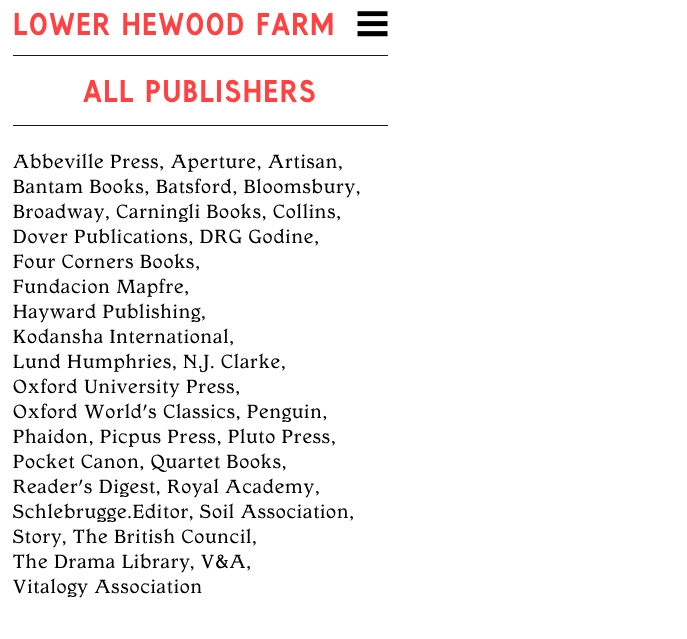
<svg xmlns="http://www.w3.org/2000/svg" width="687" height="639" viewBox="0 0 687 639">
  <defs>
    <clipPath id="clip1"><path d="M13 76h375v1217H13z"/></clipPath>
  </defs>
  <rect width="100%" height="100%" fill="#fff"/>
  <path d="M13 55h375v1H13z" fill="#1a1a1a"/>
  <image x="357" y="11" width="31" height="26" href="img/1.png"/>
  <path d="M13 125h375v1H13z" fill="#1a1a1a"/>
  <g font-family="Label" font-size="30" letter-spacing="1.25" fill="#ff4141">
    <text x="13" y="35">LOWER HEWOOD FARM</text>
    <text x="83" y="102">ALL PUBLISHERS</text>
  </g>
  <g font-family="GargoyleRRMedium" font-size="20" font-weight="500" letter-spacing="1.25" fill="#000">
    <text x="13" y="168">Abbeville Press, Aperture, Artisan,</text>
    <text x="13" y="193">Bantam Books, Batsford, Bloomsbury,</text>
    <text x="13" y="218">Broadway, Carningli Books, Collins,</text>
    <text x="13" y="243">Dover Publications, DRG Godine,</text>
    <text x="13" y="268">Four Corners Books,</text>
    <text x="13" y="293">Fundacion Mapfre,</text>
    <text x="13" y="318">Hayward Publishing,</text>
    <text x="13" y="343">Kodansha International,</text>
    <text x="13" y="368">Lund Humphries, N.J. Clarke,</text>
    <text x="13" y="393">Oxford University Press,</text>
    <text x="13" y="418">Oxford World's Classics, Penguin,</text>
    <text x="13" y="443">Phaidon, Picpus Press, Pluto Press,</text>
    <text x="13" y="468">Pocket Canon, Quartet Books,</text>
    <text x="13" y="493">Reader's Digest, Royal Academy,</text>
  </g>
  <g clip-path="url(#clip1)">
    <text x="13" y="518" font-family="GargoyleRRMedium" font-size="20" font-weight="500" letter-spacing="1.25" fill="#000">Schlebrugge.Editor</text>
  </g>
  <text x="189" y="518" font-family="GargoyleRRMedium" font-size="20" font-weight="500" letter-spacing="1.25" fill="#000">, Soil Association,</text>
  <g clip-path="url(#clip1)">
    <text x="13" y="543" font-family="GargoyleRRMedium" font-size="20" font-weight="500" letter-spacing="1.25" fill="#000">Story</text>
  </g>
  <text x="62" y="543" font-family="GargoyleRRMedium" font-size="20" font-weight="500" letter-spacing="1.25" fill="#000">, The British Council,</text>
  <g clip-path="url(#clip1)">
    <text x="13" y="568" font-family="GargoyleRRMedium" font-size="20" font-weight="500" letter-spacing="1.25" fill="#000">The Drama Library</text>
  </g>
  <g font-family="GargoyleRRMedium" font-size="20" font-weight="500" letter-spacing="1.25" fill="#000">
    <text x="190" y="568">, V&amp;A,</text>
    <text x="13" y="593">Vitalogy Association</text>
  </g>
</svg>
